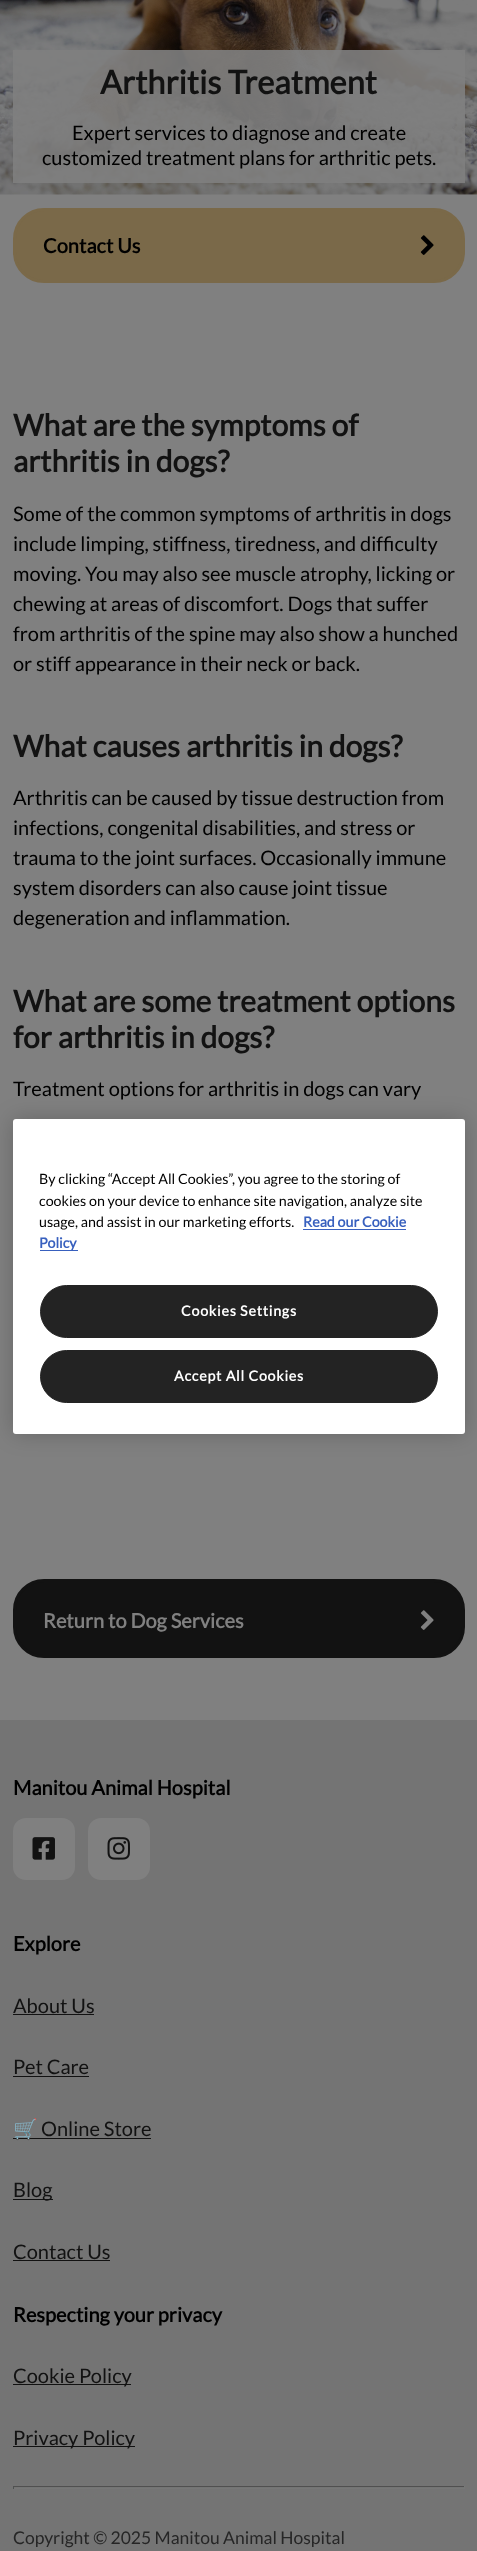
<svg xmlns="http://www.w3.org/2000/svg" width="477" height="2551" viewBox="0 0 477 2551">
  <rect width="100%" height="100%" fill="#808080"/>
  <image x="0" y="0" width="477" height="195" href="img/1.png"/>
  <path d="M13 50h452v133H13z" fill="#808080e6"/>
  <rect x="14.5" y="209.5" width="449" height="72" rx="29.5" fill="#7a6949" stroke="#7a6949" stroke-width="3"/>
  <image x="420" y="235" width="14" height="20" href="img/2.png"/>
  <rect x="14.5" y="1580.5" width="449" height="76" rx="29.5" fill="#121212" stroke="#121212" stroke-width="3"/>
  <image x="420" y="1610" width="14" height="20" href="img/3.png"/>
  <path d="M0 1720h477v831H0z" fill="#747474"/>
  <rect x="13" y="1818" width="62" height="62" rx="13" fill="#808080"/>
  <image x="32" y="1837" width="23" height="23" href="img/4.png"/>
  <rect x="88" y="1818" width="62" height="62" rx="13" fill="#808080"/>
  <image x="107" y="1837" width="23" height="23" href="img/5.png"/>
  <path d="M13 2014h81v1H13z" fill="#121212"/>
  <path d="M13 2076h76v1H13z" fill="#121212"/>
  <path d="M13 2138h138v1H13z" fill="#121212"/>
  <path d="M13 2199h40v1H13z" fill="#121212"/>
  <path d="M13 2260h97v1H13z" fill="#121212"/>
  <path d="M13 2384h118v1H13z" fill="#121212"/>
  <path d="M13 2446h122v1H13z" fill="#121212"/>
  <path d="M13 2486h452v1H13z" fill="#505050"/>
  <path d="M464 2486h1v3H464z" fill="#777"/>
  <path d="M13 2488h452v1H13z" fill="#777"/>
  <path d="M13 2486h1v3H13z" fill="#505050"/>
  <rect x="13" y="1119" width="452" height="315" rx="3" fill="#00000033" filter="blur(11px)"/>
  <rect x="13" y="1119" width="452" height="315" rx="3" fill="#fff"/>
  <path d="M303 1229h103v1H303z" fill="#3860be"/>
  <path d="M40 1250h38v1H40z" fill="#3860be"/>
  <rect x="40.5" y="1285.5" width="397" height="52" rx="26" fill="#232323" stroke="#232323"/>
  <rect x="40.5" y="1350.5" width="397" height="52" rx="26" fill="#232323" stroke="#232323"/>
  <text x="100" y="94" font-family="Lato" font-size="32.5" font-weight="bold" fill="#121212">Arthritis Treatment</text>
  <g font-family="Lato" font-size="20" fill="#000">
    <text x="72" y="140">Expert services to diagnose and create</text>
    <text x="42" y="165">customized treatment plans for arthritic pets.</text>
  </g>
  <text x="43" y="253" font-family="Lato" font-size="20" font-weight="bold" fill="#000">Contact Us</text>
  <g font-family="Lato" font-size="30" font-weight="bold" fill="#121212">
    <text x="13" y="436">What are the symptoms of</text>
    <text x="13" y="472">arthritis in dogs?</text>
  </g>
  <g font-family="Lato" font-size="20" fill="#000">
    <text x="13" y="521">Some of the common symptoms of arthritis in dogs</text>
    <text x="13" y="551">include limping, stiffness, tiredness, and difficulty</text>
    <text x="13" y="581">moving. You may also see muscle atrophy, licking or</text>
    <text x="13" y="611">chewing at areas of discomfort. Dogs that suffer</text>
    <text x="13" y="641">from arthritis of the spine may also show a hunched</text>
    <text x="13" y="671">or stiff appearance in their neck or back.</text>
  </g>
  <text x="13" y="757" font-family="Lato" font-size="30" font-weight="bold" fill="#121212">What causes arthritis in dogs?</text>
  <g font-family="Lato" font-size="20" fill="#000">
    <text x="13" y="805">Arthritis can be caused by tissue destruction from</text>
    <text x="13" y="835">infections, congenital disabilities, and stress or</text>
    <text x="13" y="865">trauma to the joint surfaces. Occasionally immune</text>
    <text x="13" y="895">system disorders can also cause joint tissue</text>
    <text x="13" y="925">degeneration and inflammation.</text>
  </g>
  <g font-family="Lato" font-size="30" font-weight="bold" fill="#121212">
    <text x="13" y="1012">What are some treatment options</text>
    <text x="13" y="1048">for arthritis in dogs?</text>
  </g>
  <text x="13" y="1096" font-family="Lato" font-size="20" fill="#000">Treatment options for arthritis in dogs can vary</text>
  <text x="43" y="1628" font-family="Lato" font-size="20" font-weight="bold" fill="#808080">Return to Dog Services</text>
  <g font-family="Lato" font-size="20" font-weight="bold" fill="#000">
    <text x="13" y="1795">Manitou Animal Hospital</text>
    <text x="13" y="1951">Explore</text>
  </g>
  <g font-family="Lato" font-size="20" fill="#121212">
    <text x="13" y="2013">About Us</text>
    <text x="13" y="2074">Pet Care</text>
  </g>
  <text x="13" y="2136" font-family="Noto Color Emoji" font-size="20" fill="#121212">🛒</text>
  <g font-family="Lato" font-size="20" fill="#121212">
    <text x="41" y="2136">Online Store</text>
    <text x="13" y="2197">Blog</text>
    <text x="13" y="2259">Contact Us</text>
  </g>
  <text x="13" y="2322" font-family="Lato" font-size="20" font-weight="bold" fill="#000">Respecting your privacy</text>
  <g font-family="Lato" font-size="20" fill="#121212">
    <text x="13" y="2383">Cookie Policy</text>
    <text x="13" y="2445">Privacy Policy</text>
  </g>
  <text x="13" y="2544" font-family="Lato" font-size="17.5" fill="#262626">Copyright © 2025 Manitou Animal Hospital</text>
  <g font-family="Lato" font-size="14.25" fill="#000">
    <text x="39" y="1184">By clicking “Accept All Cookies”, you agree to the storing of</text>
    <text x="39" y="1206">cookies on your device to enhance site navigation, analyze site</text>
    <text x="39" y="1227">usage, and assist in our marketing efforts.</text>
  </g>
  <g font-family="Lato" font-size="14.25" font-weight="bold" fill="#3860be">
    <text x="303" y="1227">Read our Cookie</text>
    <text x="39" y="1248">Policy</text>
  </g>
  <g font-family="Lato" font-size="14.25" font-weight="bold" letter-spacing="0.75" fill="#fff">
    <text x="181" y="1316">Cookies Settings</text>
    <text x="174" y="1381">Accept All Cookies</text>
  </g>
</svg>
